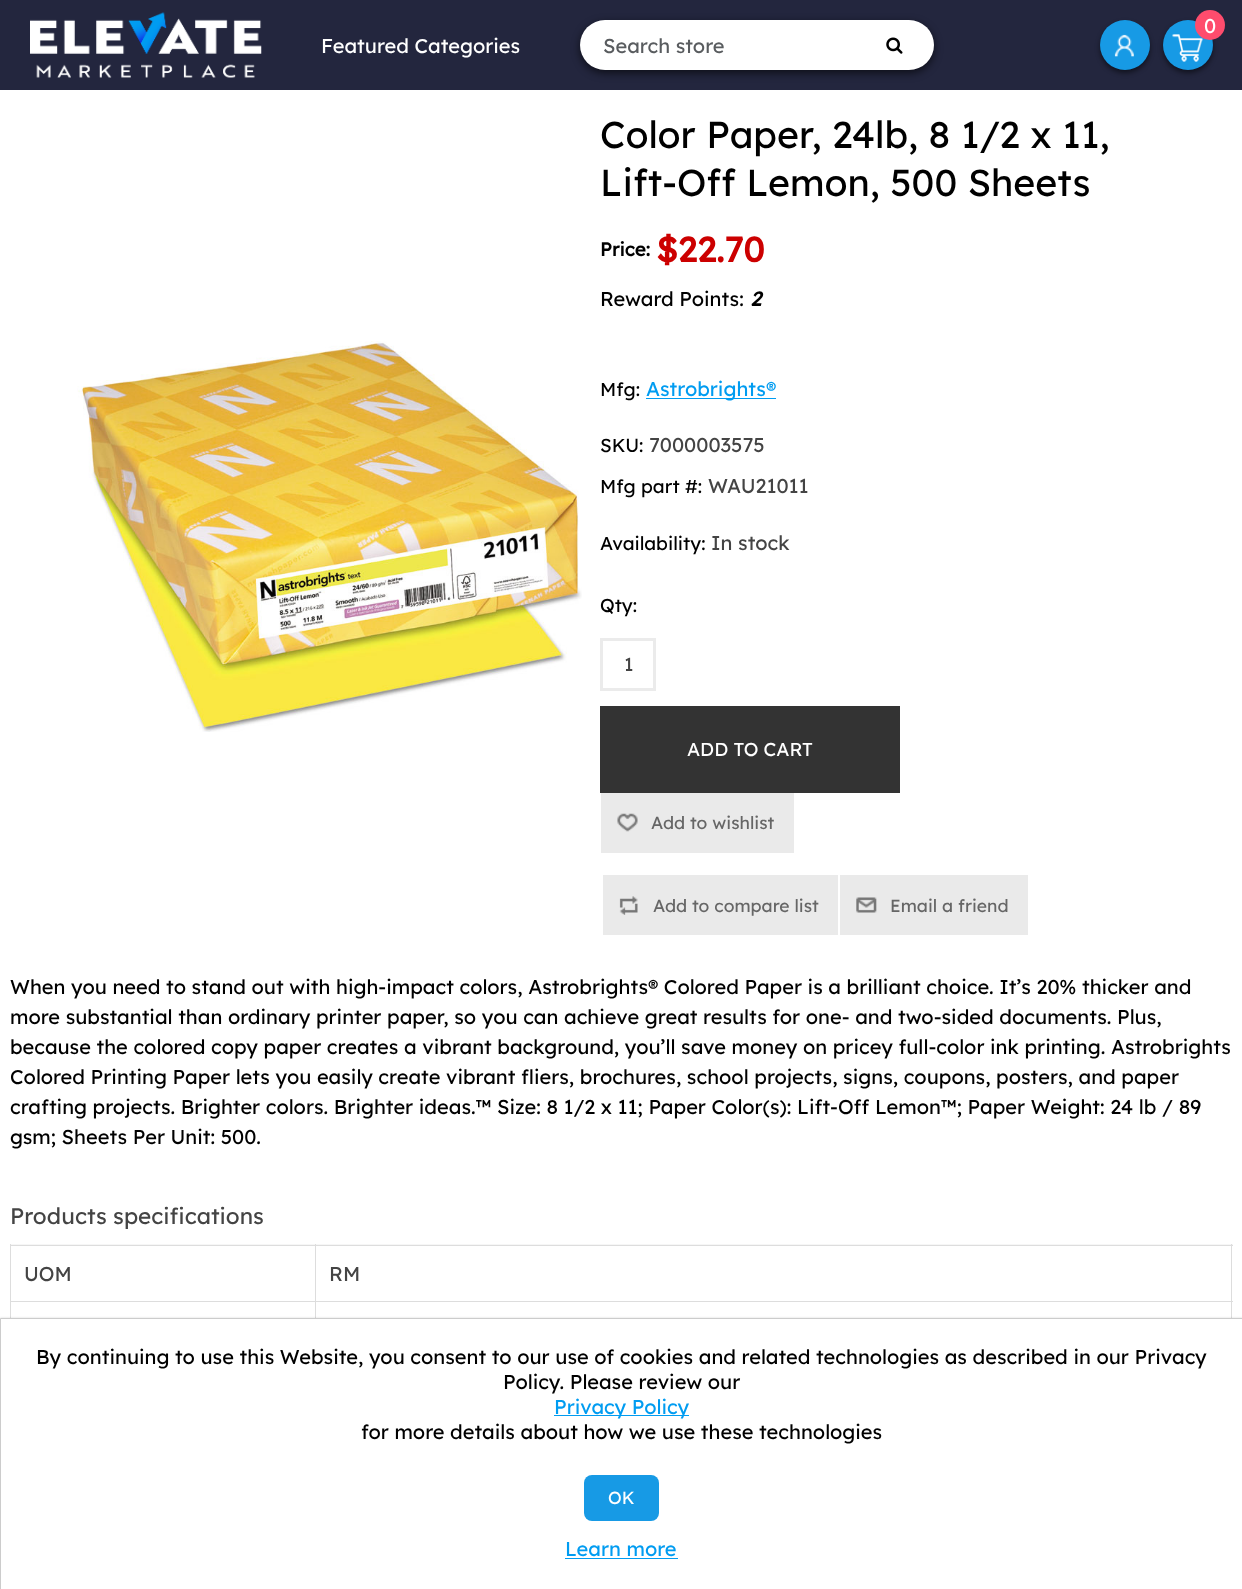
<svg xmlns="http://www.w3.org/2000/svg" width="1242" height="1589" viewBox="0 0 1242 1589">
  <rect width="100%" height="100%" fill="#fff"/>
  <path d="M0 0h1242v90H0z" fill="#23263e"/>
  <image x="30" y="12" width="232" height="66" href="img/1.png"/>
  <rect x="1100" y="23" width="50" height="50" rx="25" fill="#00000080" filter="blur(2.5px)"/>
  <circle cx="1125" cy="45" r="25" fill="#179ae5"/>
  <image x="1114" y="34" width="20" height="23" href="img/2.png"/>
  <rect x="1163" y="23" width="50" height="50" rx="25" fill="#00000080" filter="blur(2.5px)"/>
  <circle cx="1188" cy="45" r="25" fill="#179ae5"/>
  <image x="1172" y="34" width="31" height="28" href="img/3.png"/>
  <circle cx="1210" cy="25" r="15" fill="#fe4c6d"/>
  <rect x="580" y="23" width="354" height="50" rx="25" fill="#0000009e" filter="blur(4px)"/>
  <rect x="580" y="20" width="354" height="50" rx="25" fill="#fff"/>
  <image x="886" y="37" width="17" height="17" href="img/4.png"/>
  <image x="77" y="341" width="505" height="391" href="img/5.png"/>
  <path d="M646 398h130v1H646z" fill="#009cf1"/>
  <path d="M601.5 639.5h53v50H601.5z" fill="none" stroke="#ebebeb" stroke-width="3"/>
  <path d="M600 706h300v87H600z" fill="#333"/>
  <path d="M601 793h193v60H601z" fill="#eaeaea"/>
  <image x="617" y="813" width="21" height="19" href="img/6.png"/>
  <path d="M603 875h235v60H603z" fill="#eaeaea"/>
  <image x="619" y="896" width="19" height="19" href="img/7.png"/>
  <path d="M840 875h188v60H840z" fill="#eaeaea"/>
  <image x="856" y="897" width="21" height="16" href="img/8.png"/>
  <path d="M11 1244h1222v1H11z" fill="#f6f6f6"/>
  <path d="M315 1245h918v1H315z" fill="#ddd"/>
  <path d="M315 1301h918v1H315z" fill="#ddd"/>
  <path d="M315 1301h1v17H315z" fill="#ddd"/>
  <path d="M10 1301h306v1H10z" fill="#ddd"/>
  <path d="M315 1245h1v58H315z" fill="#ddd"/>
  <path d="M10 1245h306v1H10z" fill="#ddd"/>
  <path d="M315 1244h1v3H315z" fill="#ddd"/>
  <path d="M10 1301h1v17H10z" fill="#ddd"/>
  <path d="M10 1244h1v59H10z" fill="#ddd"/>
  <path d="M1231 1301h1v17H1231z" fill="#ddd"/>
  <path d="M1231 1244h1v59H1231z" fill="#ddd"/>
  <path d="M0 1318h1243v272H0z" fill="#00000026" filter="blur(1px)"/>
  <path d="M0.5 1318.5h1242v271H0.5z" fill="#fff" stroke="#ccc"/>
  <path d="M554 1415h135v1H554z" fill="#009cf1"/>
  <rect x="584" y="1475" width="75" height="46" rx="8" fill="#179ae5"/>
  <path d="M565 1558h113v1H565z" fill="#009cf1"/>
  <g font-family="Lexend" font-size="20" fill="#fff">
    <text x="1204" y="33">0</text>
    <text x="321" y="53">Featured Categories</text>
  </g>
  <text x="603" y="53" font-family="Lexend" font-size="20" fill="#595c5f">Search store</text>
  <g font-family="Lexend" font-size="37.5" fill="#000">
    <text x="600" y="148">Color Paper, 24lb, 8 1/2 x 11,</text>
    <text x="600" y="196">Lift-Off Lemon, 500 Sheets</text>
  </g>
  <text x="600" y="256" font-family="Lexend" font-size="18.75" font-weight="bold" fill="#000">Price:</text>
  <text x="656" y="262" font-family="Lexend" font-size="35" font-weight="bold" fill="#c00">$22.70</text>
  <text x="600" y="306" font-family="Lexend" font-size="20" fill="#000">Reward Points:</text>
  <text x="750" y="306" font-family="Lexend" font-size="20" font-weight="bold" font-style="italic" fill="#000">2</text>
  <text x="600" y="396" font-family="Lexend" font-size="18.75" fill="#000">Mfg:</text>
  <text x="646" y="396" font-family="Lexend" font-size="20" fill="#009cf1">Astrobrights®</text>
  <text x="600" y="452" font-family="Lexend" font-size="18.75" fill="#000">SKU:</text>
  <text x="649" y="452" font-family="Lexend" font-size="20" fill="#444">7000003575</text>
  <text x="600" y="493" font-family="Lexend" font-size="18.75" fill="#000">Mfg part #:</text>
  <text x="708" y="493" font-family="Lexend" font-size="20" fill="#444">WAU21011</text>
  <text x="600" y="550" font-family="Lexend" font-size="18.75" fill="#000">Availability:</text>
  <text x="711" y="550" font-family="Lexend" font-size="20" fill="#444">In stock</text>
  <text x="600" y="612" font-family="Lexend" font-size="18.75" fill="#000">Qty:</text>
  <text x="624" y="671" font-family="Lexend" font-size="18.75" fill="#444">1</text>
  <text x="687" y="756" font-family="Lexend" font-size="18.75" fill="#fff">ADD TO CART</text>
  <g font-family="Lexend" font-size="17.5" fill="#666">
    <text x="651" y="829">Add to wishlist</text>
    <text x="653" y="912">Add to compare list</text>
    <text x="890" y="912">Email a friend</text>
  </g>
  <g font-family="Lexend" font-size="20" fill="#000">
    <text x="10" y="994">When you need to stand out with high-impact colors, Astrobrights® Colored Paper is a brilliant choice. It’s 20% thicker and</text>
    <text x="10" y="1024">more substantial than ordinary printer paper, so you can achieve great results for one- and two-sided documents. Plus,</text>
    <text x="10" y="1054">because the colored copy paper creates a vibrant background, you’ll save money on pricey full-color ink printing. Astrobrights</text>
    <text x="10" y="1084">Colored Printing Paper lets you easily create vibrant fliers, brochures, school projects, signs, coupons, posters, and paper</text>
    <text x="10" y="1114">crafting projects. Brighter colors. Brighter ideas.™ Size: 8 1/2 x 11; Paper Color(s): Lift-Off Lemon™; Paper Weight: 24 lb / 89</text>
    <text x="10" y="1144">gsm; Sheets Per Unit: 500.</text>
  </g>
  <text x="10" y="1224" font-family="Lexend" font-size="22.5" fill="#444">Products specifications</text>
  <g font-family="Lexend" font-size="20" fill="#444">
    <text x="24" y="1281">UOM</text>
    <text x="329" y="1281">RM</text>
  </g>
  <g font-family="Lexend" font-size="20" fill="#000">
    <text x="36" y="1364">By continuing to use this Website, you consent to our use of cookies and related technologies as described in our Privacy</text>
    <text x="503" y="1389">Policy. Please review our</text>
  </g>
  <text x="554" y="1414" font-family="Lexend" font-size="20" fill="#009cf1">Privacy Policy</text>
  <text x="361" y="1439" font-family="Lexend" font-size="20" fill="#000">for more details about how we use these technologies</text>
  <text x="608" y="1504" font-family="Lexend" font-size="17.5" fill="#fff">OK</text>
  <text x="565" y="1556" font-family="Lexend" font-size="20" fill="#009cf1">Learn more</text>
</svg>
